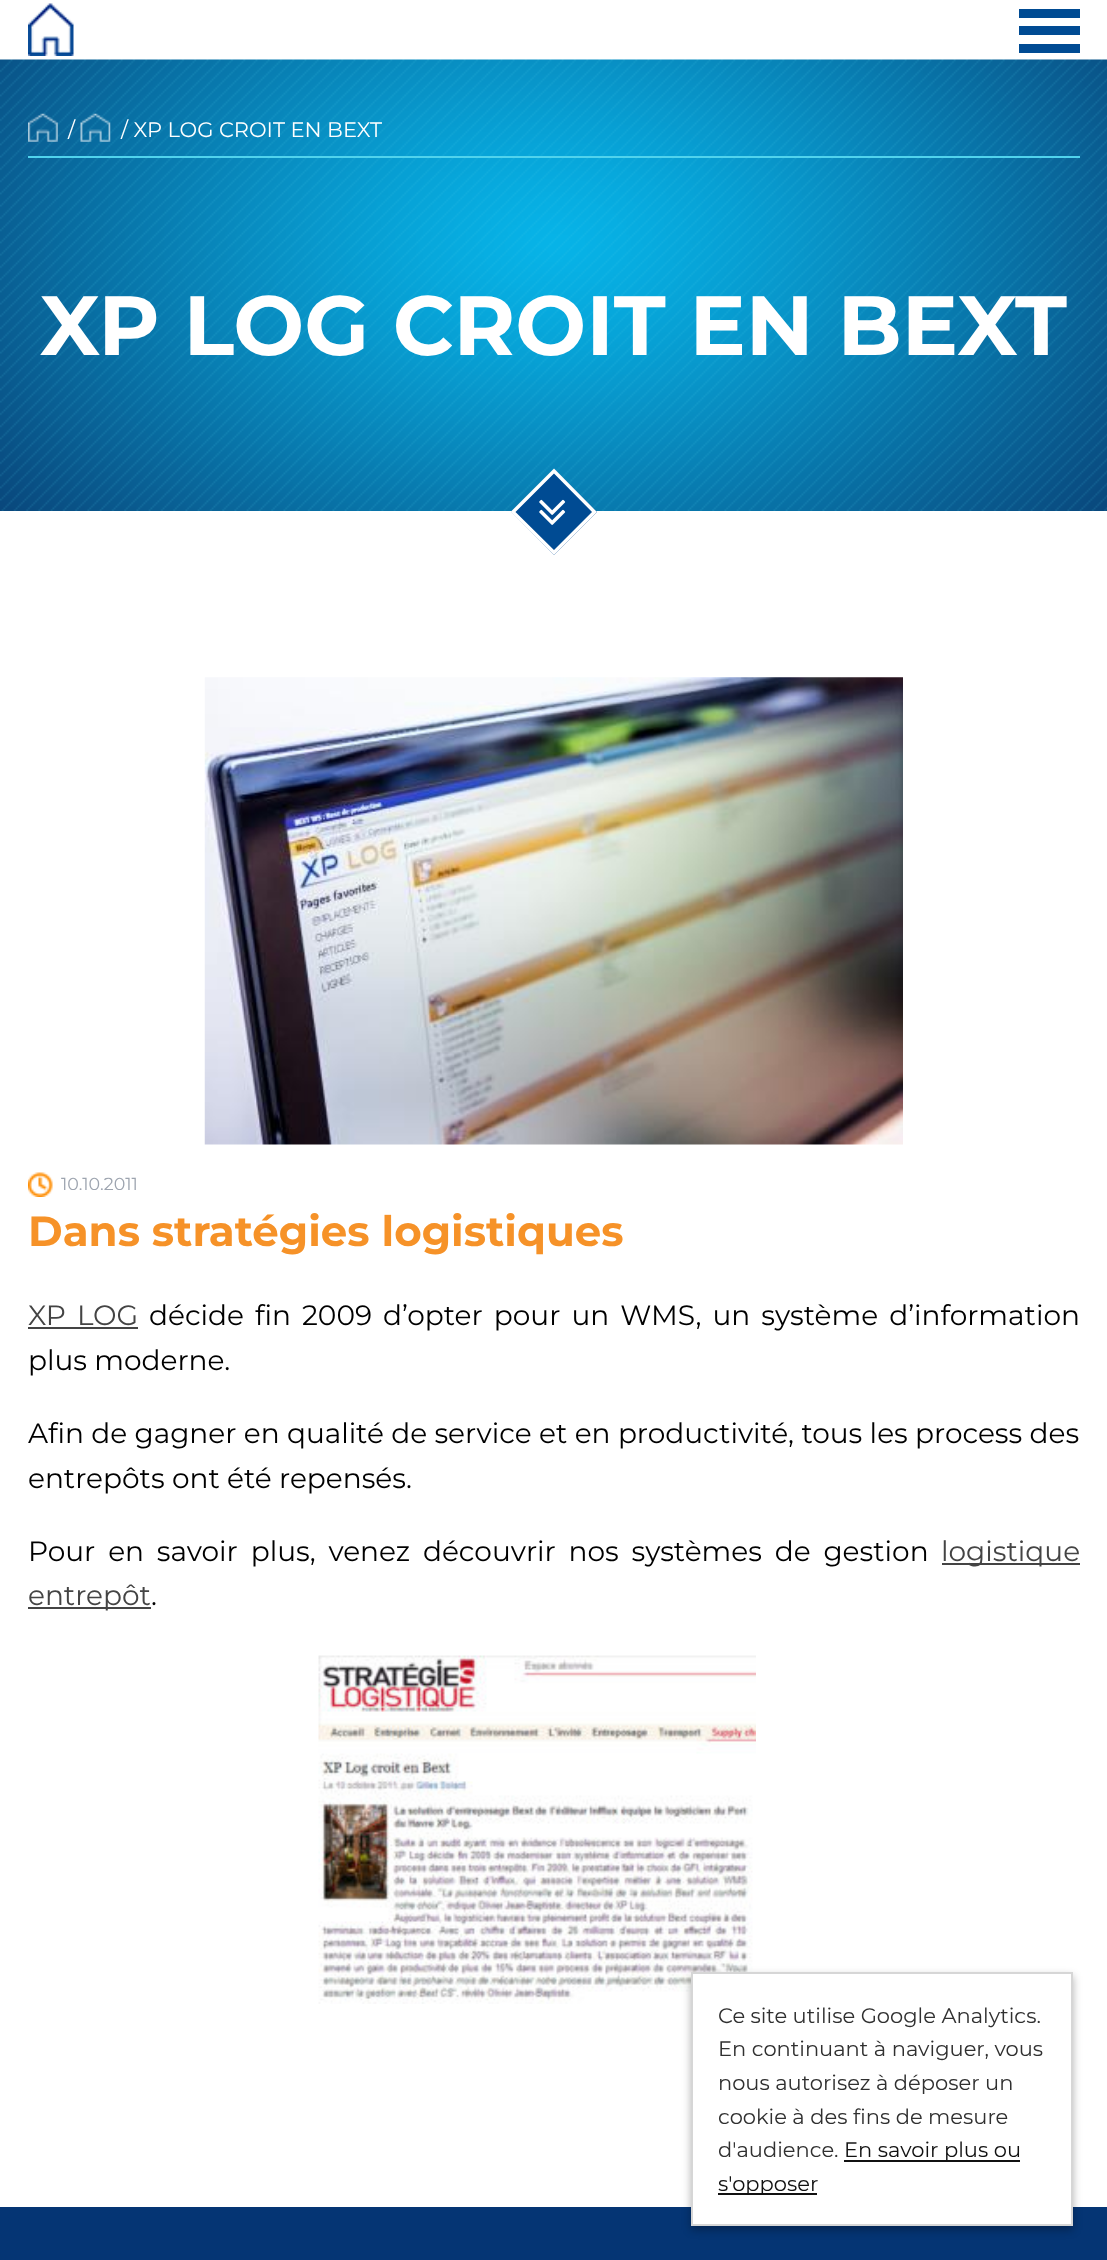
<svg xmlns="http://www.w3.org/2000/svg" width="1107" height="2260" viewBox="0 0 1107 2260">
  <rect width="100%" height="100%" fill="#fff"/>
  <image x="28" y="3" width="46" height="53" href="img/1.png"/>
  <path d="M1019 26h61v9H1019z" fill="#004b93"/>
  <path d="M1019 9h61v9H1019z" fill="#004b93"/>
  <path d="M1019 44h61v9H1019z" fill="#004b93"/>
  <image x="0" y="59" width="1107" height="452" href="img/2.png"/>
  <path d="M28 156h1052v2H28z" fill="#50d3ed"/>
  <image x="28" y="113" width="30" height="29" href="img/3.png"/>
  <image x="80" y="113" width="31" height="29" href="img/4.png"/>
  <path d="M554 469L597 512L554 555L511 512Z" fill="#004b93"/>
  <path d="M554 471L594.5 512L554 552.5L513 512Z" fill="none" stroke="#fff" stroke-width="3.5"/>
  <image x="539" y="499" width="27" height="26" href="img/5.png"/>
  <image x="204" y="677" width="699" height="468" href="img/6.png"/>
  <image x="28" y="1172" width="25" height="25" href="img/7.png"/>
  <path d="M28 1327h110v2H28z" fill="#444"/>
  <path d="M942 1563h138v2H942z" fill="#444"/>
  <path d="M28 1607h123v2H28z" fill="#444"/>
  <image x="318" y="1655" width="438" height="349" href="img/8.png"/>
  <path d="M0 2207h1107v53H0z" fill="#053574"/>
  <path d="M691 1976h382v254H691z" fill="#0000004d" filter="blur(4.5px)"/>
  <path d="M692 1973h380v252H692z" fill="#fff" stroke="#d6d6d6" stroke-width="2"/>
  <path d="M844 2160h176v2H844z" fill="#111"/>
  <path d="M718 2193h99v2H718z" fill="#111"/>
  <g font-family="Montserrat" font-size="21" fill="#fff">
    <text x="68" y="137">/</text>
    <text x="121" y="137">/ XP LOG CROIT EN BEXT</text>
  </g>
  <text x="40" y="355" font-family="Montserrat" font-size="84" font-weight="bold" fill="#fff">XP LOG CROIT EN BEXT</text>
  <text x="61" y="1190" font-family="Montserrat" font-size="17.5" fill="#9da4af">10.10.2011</text>
  <text x="28" y="1246" font-family="Montserrat" font-size="42" font-weight="bold" fill="#f69228">Dans stratégies logistiques</text>
  <text x="28" y="1325" word-spacing="3.75" font-family="Montserrat" font-size="28" fill="#444">XP LOG</text>
  <g font-family="Montserrat" font-size="28" fill="#000">
    <text x="149" y="1325" word-spacing="3.75">décide fin 2009 d’opter pour un WMS, un système d’information</text>
    <text x="28" y="1370">plus moderne.</text>
    <text x="28" y="1443">Afin de gagner en qualité de service et en productivité, tous les process des</text>
    <text x="28" y="1488">entrepôts ont été repensés.</text>
    <text x="28" y="1561" word-spacing="5.5">Pour en savoir plus, venez découvrir nos systèmes de gestion</text>
  </g>
  <g font-family="Montserrat" font-size="28" fill="#444">
    <text x="941" y="1561">logistique</text>
    <text x="28" y="1605">entrepôt</text>
  </g>
  <text x="151" y="1605" font-family="Montserrat" font-size="28" fill="#000">.</text>
  <g font-family="Montserrat" font-size="21" fill="#303030">
    <text x="718" y="2023">Ce site utilise Google Analytics.</text>
    <text x="718" y="2056">En continuant à naviguer, vous</text>
    <text x="718" y="2090">nous autorisez à déposer un</text>
    <text x="718" y="2124">cookie à des fins de mesure</text>
    <text x="718" y="2157">d'audience.</text>
  </g>
  <g font-family="Montserrat" font-size="21" fill="#111">
    <text x="844" y="2157">En savoir plus ou</text>
    <text x="718" y="2191">s'opposer</text>
  </g>
</svg>
